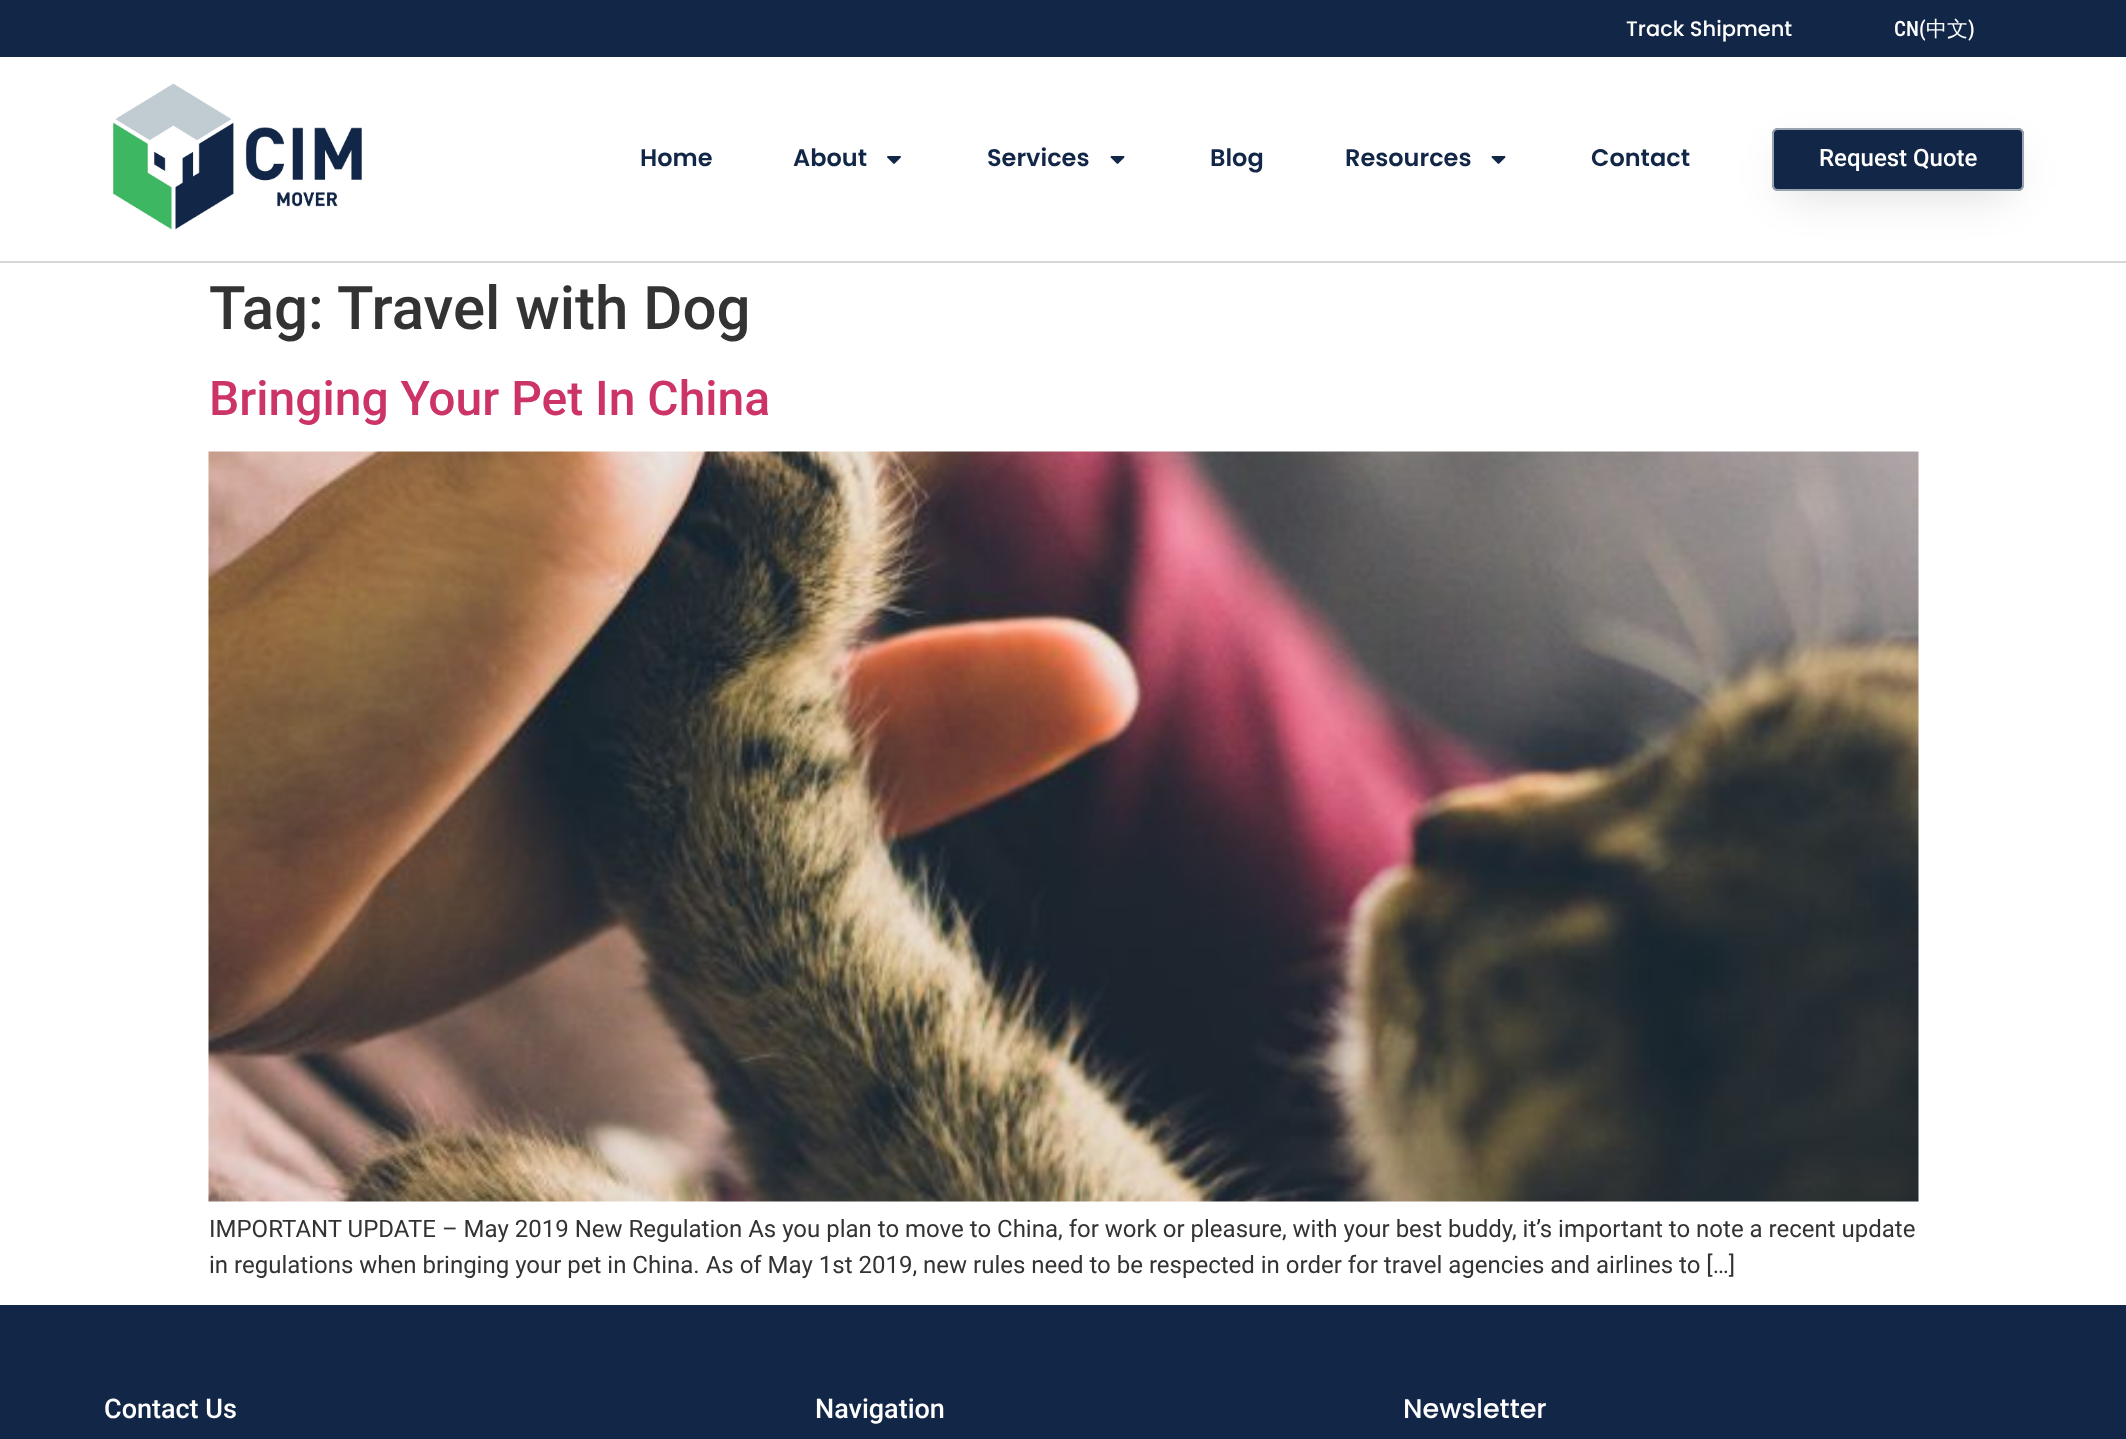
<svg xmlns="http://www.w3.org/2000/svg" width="2126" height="1439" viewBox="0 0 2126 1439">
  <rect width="100%" height="100%" fill="#fff"/>
  <path d="M0 0h2126v57H0z" fill="#122647"/>
  <path d="M0 261h2126v2H0z" fill="#d6d6d6"/>
  <image x="113" y="83" width="249" height="147" href="img/1.png"/>
  <image x="887" y="156" width="14" height="8" href="img/2.png"/>
  <image x="1110" y="156" width="15" height="8" href="img/3.png"/>
  <image x="1491" y="156" width="15" height="8" href="img/3.png"/>
  <path d="M1785 156h225v36H1785z" fill="#00000029" filter="blur(22.5px)"/>
  <rect x="1772" y="128" width="252" height="63" rx="6" fill="#122647"/>
  <rect x="1773" y="129" width="250" height="61" rx="5" fill="none" stroke="#c1ccd2c4" stroke-width="2"/>
  <image x="208" y="451" width="1711" height="751" href="img/4.png"/>
  <path d="M0 1305h2126v134H0z" fill="#122647"/>
  <text x="1626" y="36" font-family="Poppins" font-size="21" font-weight="500" fill="#fff">Track Shipment</text>
  <text x="1894" y="36" font-family="Roboto Condensed" font-size="21" font-weight="500" fill="#fff">CN(</text>
  <text x="1926" y="36" font-family="WenQuanYi Zen Hei" font-size="21" font-weight="500" fill="#fff">中文</text>
  <text x="1968" y="36" font-family="Roboto Condensed" font-size="21" font-weight="500" fill="#fff">)</text>
  <g font-family="Poppins" font-size="24" font-weight="600" fill="#122647">
    <text x="640" y="166">Home</text>
    <text x="793" y="166">About</text>
    <text x="987" y="166">Services</text>
    <text x="1210" y="166">Blog</text>
    <text x="1345" y="166">Resources</text>
    <text x="1591" y="166">Contact</text>
  </g>
  <text x="1819" y="166" font-family="Roboto" font-size="24" font-weight="500" fill="#fff">Request Quote</text>
  <g font-family="Roboto" font-size="60" font-weight="500" fill="#333">
    <text x="209" y="329">Tag:</text>
    <text x="337" y="329">Travel with Dog</text>
  </g>
  <text x="209" y="415" font-family="Roboto" font-size="48" font-weight="500" fill="#c36">Bringing Your Pet In China</text>
  <g font-family="Roboto" font-size="24" fill="#333">
    <text x="209" y="1237">IMPORTANT UPDATE – May 2019 New Regulation As you plan to move to China, for work or pleasure, with your best buddy, it’s important to note a recent update</text>
    <text x="209" y="1273">in regulations when bringing your pet in China. As of May 1st 2019, new rules need to be respected in order for travel agencies and airlines to […]</text>
  </g>
  <g font-family="Roboto" font-size="27" font-weight="500" fill="#fff">
    <text x="104" y="1418">Contact Us</text>
    <text x="815" y="1418">Navigation</text>
  </g>
  <text x="1403" y="1418" font-family="Poppins" font-size="27" font-weight="500" fill="#fff">Newsletter</text>
</svg>
